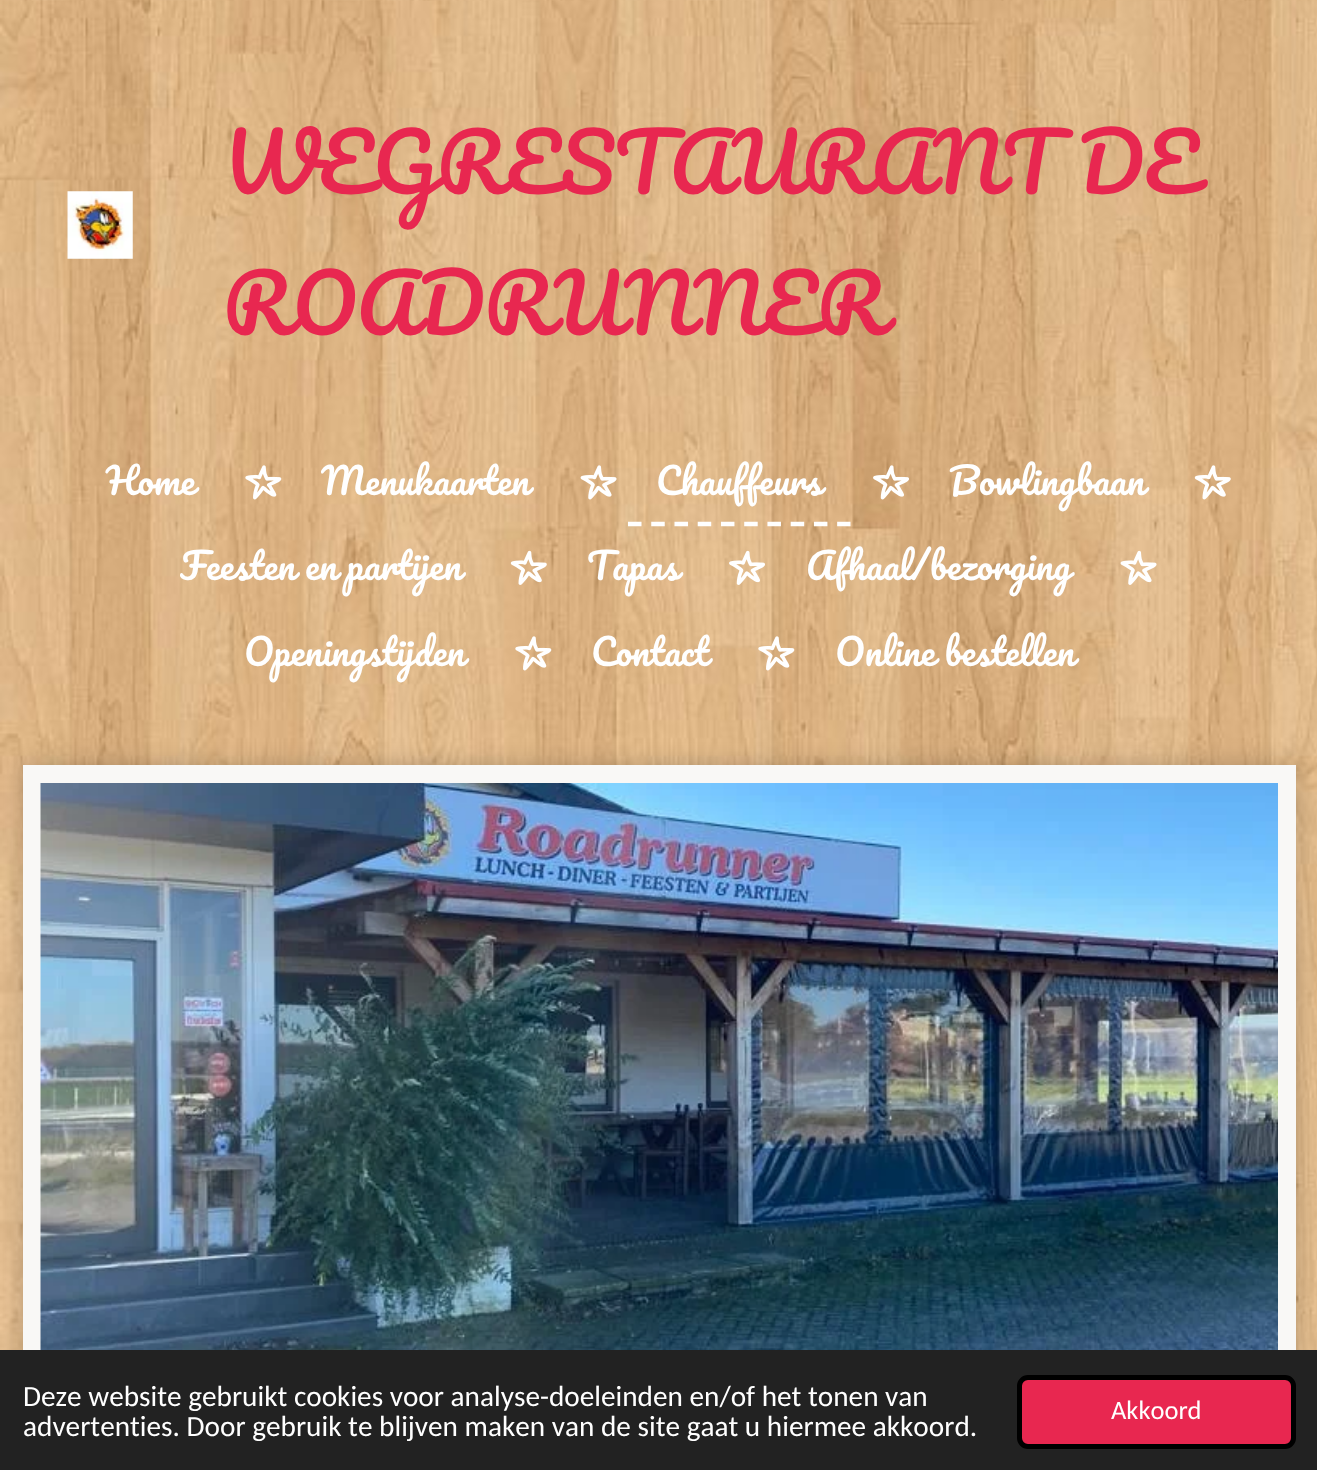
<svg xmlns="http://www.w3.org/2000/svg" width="1317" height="1470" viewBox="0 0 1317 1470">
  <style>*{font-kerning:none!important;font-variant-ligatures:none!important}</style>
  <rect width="100%" height="100%" fill="#fff"/>
  <image x="0" y="0" width="1317" height="1350" href="img/1.png"/>
  <image x="67" y="191" width="66" height="68" href="img/2.png"/>
  <image x="245" y="465" width="37" height="35" href="img/3.png"/>
  <image x="580" y="465" width="37" height="35" href="img/4.png"/>
  <path d="M628 524H850.5" fill="none" stroke="#fff" stroke-width="4.5" stroke-dasharray="13.5 9.74"/>
  <image x="873" y="465" width="36" height="35" href="img/5.png"/>
  <image x="1194" y="465" width="37" height="35" href="img/6.png"/>
  <image x="510" y="550" width="37" height="35" href="img/7.png"/>
  <image x="729" y="550" width="36" height="35" href="img/8.png"/>
  <image x="1120" y="550" width="37" height="35" href="img/9.png"/>
  <image x="515" y="636" width="37" height="35" href="img/10.png"/>
  <image x="758" y="636" width="37" height="35" href="img/11.png"/>
  <path d="M23 765h1273v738H23z" fill="#00000033" filter="blur(11px)"/>
  <path d="M23 765h1273v585H23z" fill="#f9f8f6"/>
  <image x="40" y="783" width="1238" height="567" href="img/12.png"/>
  <path d="M0 1350h1317v120H0z" fill="#222"/>
  <rect x="1019.5" y="1377.5" width="274" height="69" rx="8.5" fill="#e82750" stroke="#000" stroke-width="5"/>
  <g font-family="Pacifico" font-size="78.75" fill="#e82750">
    <text x="223" y="194">WEGRESTAURANT DE</text>
    <text x="223" y="335">ROADRUNNER</text>
  </g>
  <g font-family="Pacifico" font-size="36" fill="#fff">
    <text x="106" y="495">Home</text>
    <text x="321" y="495">Menukaarten</text>
    <text x="656" y="495">Chauffeurs</text>
    <text x="949" y="495">Bowlingbaan</text>
    <text x="180" y="580">Feesten en partijen</text>
    <text x="587" y="580">Tapas</text>
    <text x="806" y="580">Afhaal/bezorging</text>
    <text x="244" y="666">Openingstijden</text>
    <text x="591" y="666">Contact</text>
    <text x="835" y="666">Online bestellen</text>
  </g>
  <g font-family="Carlito" font-size="29.25" fill="#fff">
    <text x="23" y="1406">Deze website gebruikt cookies voor analyse-doeleinden en/of het tonen van</text>
    <text x="23" y="1436">advertenties. Door gebruik te blijven maken van de site gaat u hiermee akkoord.</text>
  </g>
  <text x="1111" y="1419" font-family="Carlito" font-size="26.5" fill="#fff">Akkoord</text>
</svg>
